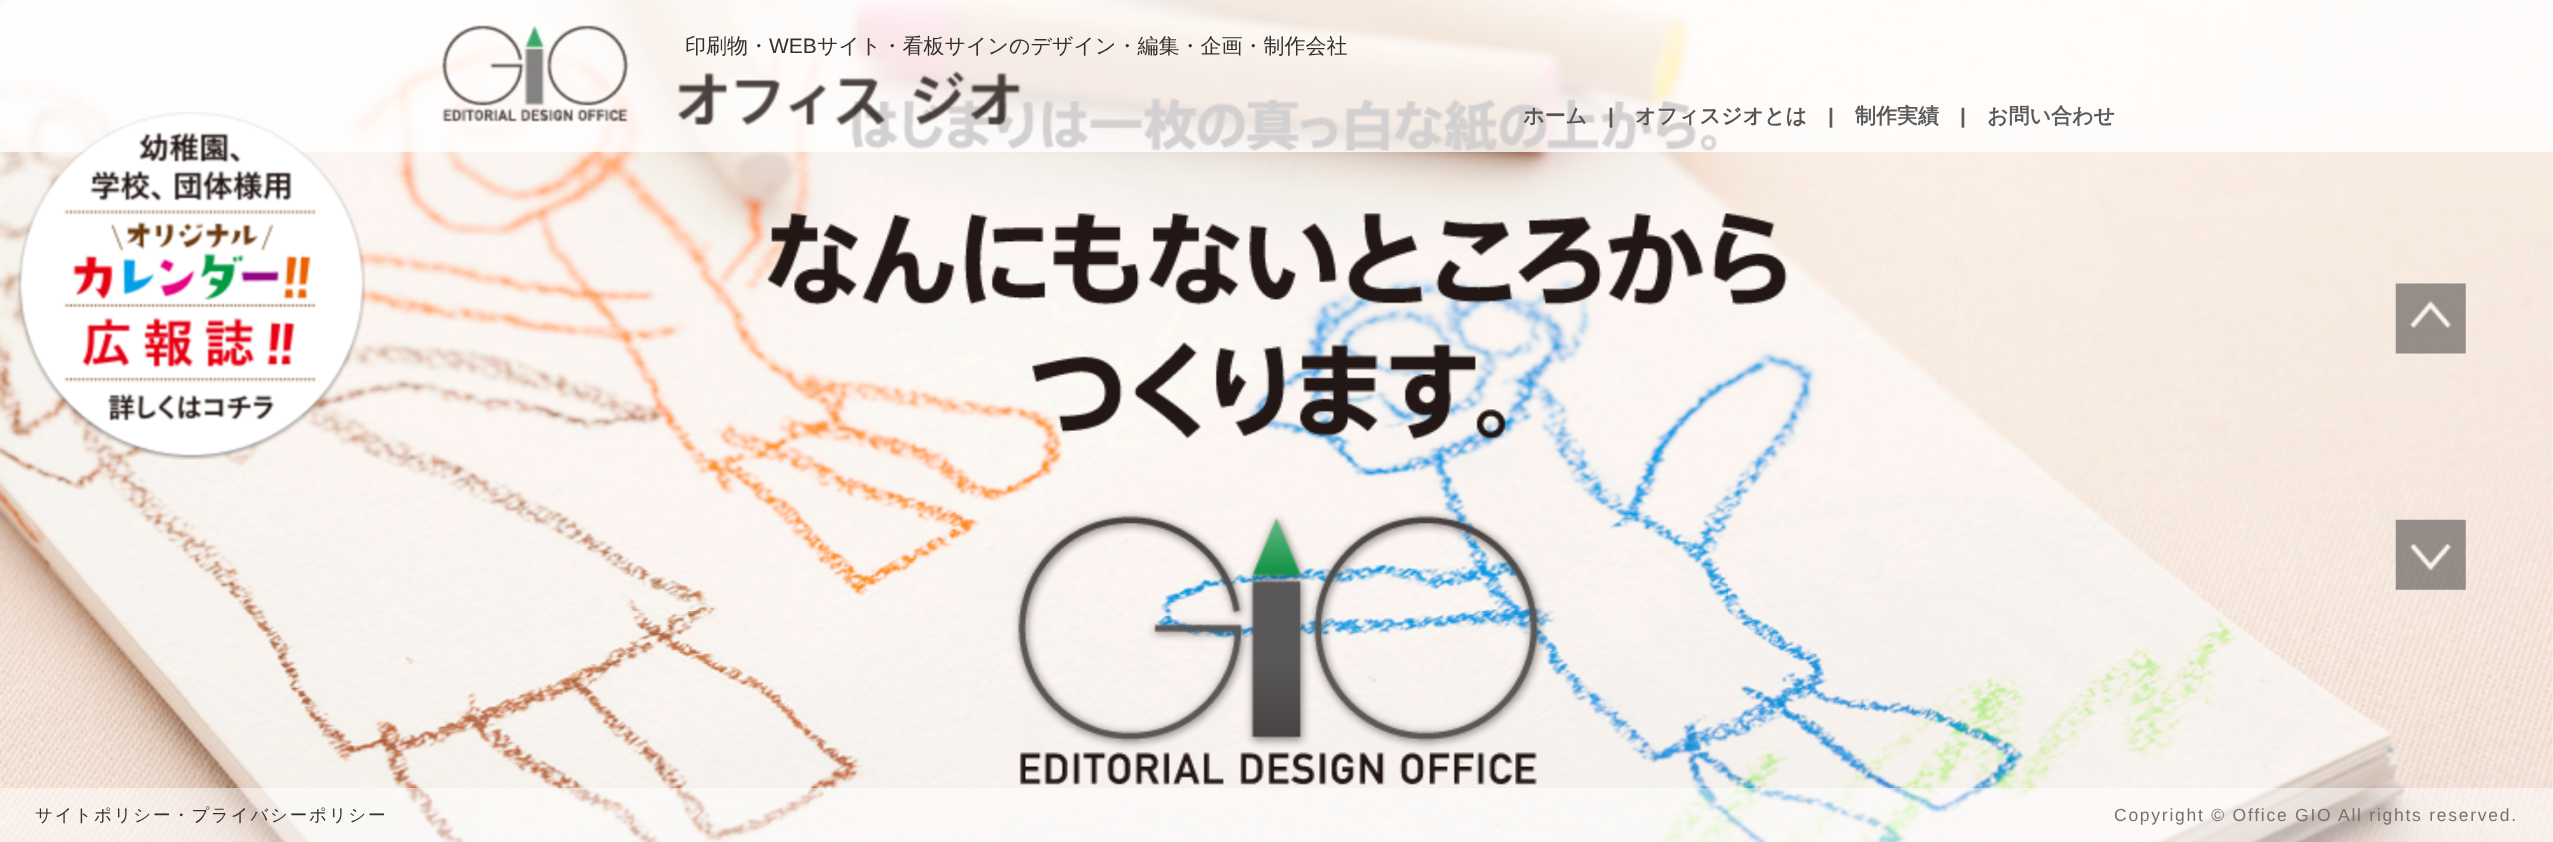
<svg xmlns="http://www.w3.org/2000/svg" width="2553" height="842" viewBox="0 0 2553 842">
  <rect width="100%" height="100%" fill="#fff"/>
  <image x="0" y="0" width="2553" height="842" href="img/1.png"/>
  <image x="766" y="97" width="1022" height="688" href="img/2.png"/>
  <image x="2395" y="283" width="71" height="71" href="img/3.png"/>
  <image x="2395" y="519" width="71" height="71" href="img/4.png"/>
  <path d="M0 0h2553v152H0z" fill="#ffffffcc"/>
  <image x="442" y="25" width="187" height="97" href="img/5.png"/>
  <image x="677" y="71" width="344" height="55" href="img/6.png"/>
  <image x="17" y="112" width="349" height="348" href="img/7.png"/>
  <path d="M0 788h2553v54H0z" fill="#ffffff80"/>
  <text x="685" y="53" font-family="WenQuanYi Zen Hei" font-size="21" font-weight="500" fill="#323130">印刷物・</text>
  <text x="769" y="53" font-family="Liberation Sans" font-size="21" fill="#323130">WEB</text>
  <text x="817" y="53" font-family="WenQuanYi Zen Hei" font-size="21" font-weight="500" fill="#323130">サイト・看板サインのデザイン・編集・企画・制作会社</text>
  <text x="1523" y="123" font-family="WenQuanYi Zen Hei" font-size="21" font-weight="bold" fill="#575655">ホーム</text>
  <text x="1608" y="123" font-family="Liberation Sans" font-size="21" font-weight="bold" fill="#575655">|</text>
  <text x="1635" y="123" font-family="WenQuanYi Zen Hei" font-size="21" font-weight="bold" fill="#575655">オフィスジオとは</text>
  <text x="1828" y="123" font-family="Liberation Sans" font-size="21" font-weight="bold" fill="#5c5b5b">|</text>
  <text x="1855" y="123" font-family="WenQuanYi Zen Hei" font-size="21" font-weight="bold" fill="#5c5b5b">制作実績</text>
  <text x="1960" y="123" font-family="Liberation Sans" font-size="21" font-weight="bold" fill="#5c5b5b">|</text>
  <text x="1987" y="123" font-family="WenQuanYi Zen Hei" font-size="21" font-weight="bold" fill="#5c5b5b">お問い合わせ</text>
  <text x="35" y="821" font-family="WenQuanYi Zen Hei" font-size="17.5" font-weight="500" letter-spacing="1.75" fill="#323130">サイトポリシー・プライバシーポリシー</text>
  <text x="2114" y="821" font-family="Liberation Sans" font-size="17.5" letter-spacing="1.75" fill="#767270">Copyright © Office GIO All rights reserved.</text>
</svg>
